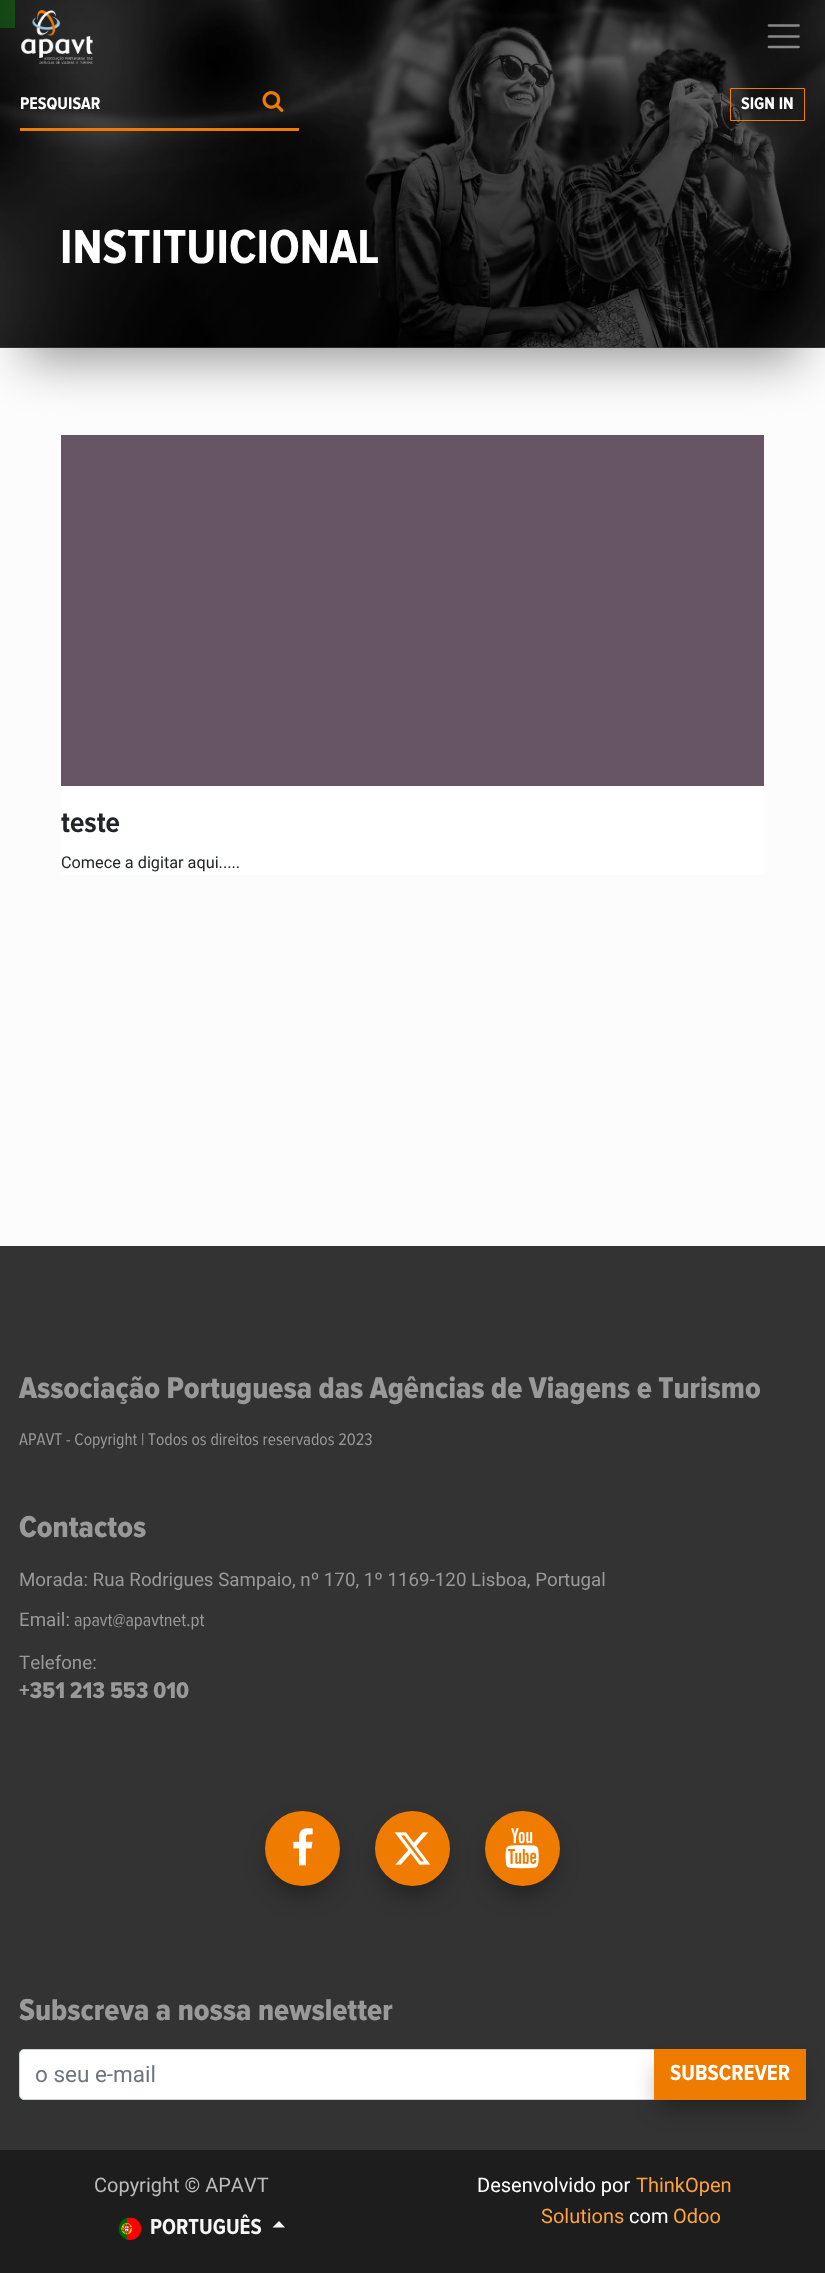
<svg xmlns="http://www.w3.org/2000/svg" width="825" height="2273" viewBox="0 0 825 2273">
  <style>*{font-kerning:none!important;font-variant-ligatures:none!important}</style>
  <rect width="100%" height="100%" fill="#fcfcfc"/>
  <path d="M25 59h775v301H25z" fill="#00000066" filter="blur(25px)"/>
  <path d="M0 347h825v1H0z" fill="#685563"/>
  <image x="0" y="0" width="825" height="348" href="img/3.png"/>
  <path d="M0 0h825v348H0z" fill="#0000002e"/>
  <image x="21" y="10" width="72" height="54" href="img/1.png"/>
  <path d="M769 25.5H798.5M769 36.5H798.5M769 47H798.5" fill="none" stroke="#ffffff80" stroke-width="2.7" stroke-linecap="round"/>
  <path d="M20 128h279v3H20z" fill="#f07b01"/>
  <image x="262" y="91" width="22" height="21" href="img/2.png"/>
  <path d="M730.5 88.5h74v32H730.5z" fill="none" stroke="#f07b01"/>
  <path d="M0 0h15v28H0z" fill="#00ff0033"/>
  <rect x="61" y="435" width="703" height="440" rx="5" fill="#fff"/>
  <path d="M61 435h703v351H61z" fill="#685563"/>
  <path d="M0 1246h825v904H0z" fill="#333"/>
  <rect x="271" y="1830" width="63" height="63" rx="31.5" fill="#00000066" filter="blur(12.5px)"/>
  <circle cx="302.5" cy="1848.5" r="37.5" fill="#f07b01"/>
  <image x="293" y="1828" width="20" height="38" href="img/4.png"/>
  <rect x="381" y="1830" width="63" height="63" rx="31.5" fill="#00000066" filter="blur(12.5px)"/>
  <circle cx="412.5" cy="1848.5" r="37.5" fill="#f07b01"/>
  <image x="394" y="1832" width="37" height="33" href="img/5.png"/>
  <rect x="491" y="1830" width="63" height="63" rx="31.5" fill="#00000066" filter="blur(12.5px)"/>
  <circle cx="522.5" cy="1848.5" r="37.5" fill="#f07b01"/>
  <image x="505" y="1828" width="34" height="41" href="img/6.png"/>
  <path d="M24 2049.5H654.5V2099.5H24C21.5 2099.5 19.5 2097.5 19.5 2095V2054C19.5 2051.5 21.5 2049.5 24 2049.5Z" fill="#fff" stroke="#ced4da"/>
  <path d="M660 2068h140v38H660z" fill="#00000066" filter="blur(12.5px)"/>
  <path d="M654 2049h152v51H654z" fill="#f07b01"/>
  <path d="M0 2150h825v123H0z" fill="#1d1d1d"/>
  <image x="118" y="2217" width="24" height="23" href="img/7.png"/>
  <path d="M285 2227.5H272.5L279 2221Z" fill="#f6f6f6"/>
  <g font-family="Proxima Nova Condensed" font-size="17.5" font-weight="bold" fill="#fff">
    <text x="20" y="109">PESQUISAR</text>
    <text x="741" y="109">SIGN IN</text>
  </g>
  <text x="60" y="263" font-family="Proxima Nova Condensed" font-size="49.5" font-weight="bold" fill="#fff">INSTITUICIONAL</text>
  <text x="61" y="832" font-family="Proxima Nova Condensed" font-size="30" font-weight="bold" fill="#212529">teste</text>
  <text x="61" y="868" font-family="Roboto" font-size="16.25" fill="#212529">Comece a digitar aqui.....</text>
  <text x="19" y="1398" font-family="Proxima Nova Condensed" font-size="31.25" font-weight="800" fill="#999">Associação Portuguesa das Agências de Viagens e Turismo</text>
  <text x="19" y="1445" font-family="Proxima Nova Condensed" font-size="17.5" fill="#999">APAVT - Copyright | Todos os direitos reservados 2023</text>
  <text x="19" y="1537" font-family="Proxima Nova Condensed" font-size="31.25" font-weight="800" fill="#999">Contactos</text>
  <g font-family="Roboto" font-size="18.75" fill="#999">
    <text x="19" y="1586">Morada: Rua Rodrigues Sampaio, nº 170, 1º 1169-120 Lisboa, Portugal</text>
    <text x="19" y="1626">Email: </text>
  </g>
  <text x="74" y="1626" font-family="Proxima Nova Condensed" font-size="18.75" fill="#999">apavt@apavtnet.pt</text>
  <text x="19" y="1669" font-family="Roboto" font-size="18.75" fill="#999">Telefone:</text>
  <text x="19" y="1698" font-family="Proxima Nova Condensed" font-size="23.75" font-weight="800" fill="#999">+351 213 553 010</text>
  <text x="19" y="2020" font-family="Proxima Nova Condensed" font-size="31.25" font-weight="800" fill="#999">Subscreva a nossa newsletter</text>
  <text x="35" y="2082" font-family="Roboto" font-size="22.5" fill="#6c757d">o seu e-mail</text>
  <text x="670" y="2080" font-family="Proxima Nova Condensed" font-size="22.5" font-weight="bold" fill="#fff">SUBSCREVER</text>
  <text x="94" y="2192" font-family="Roboto" font-size="20" fill="#bbb">Copyright © APAVT</text>
  <text x="150" y="2234" font-family="Proxima Nova Condensed" font-size="22.5" font-weight="bold" fill="#f6f6f6">PORTUGUÊS</text>
  <text x="477" y="2192" font-family="Roboto" font-size="20" fill="#fff">Desenvolvido por</text>
  <g font-family="Roboto" font-size="20" fill="#fea13f">
    <text x="636" y="2192">ThinkOpen</text>
    <text x="541" y="2223">Solutions</text>
  </g>
  <text x="629" y="2223" font-family="Roboto" font-size="20" fill="#fff">com</text>
  <text x="673" y="2223" font-family="Roboto" font-size="20" fill="#fea13f">Odoo</text>
</svg>
